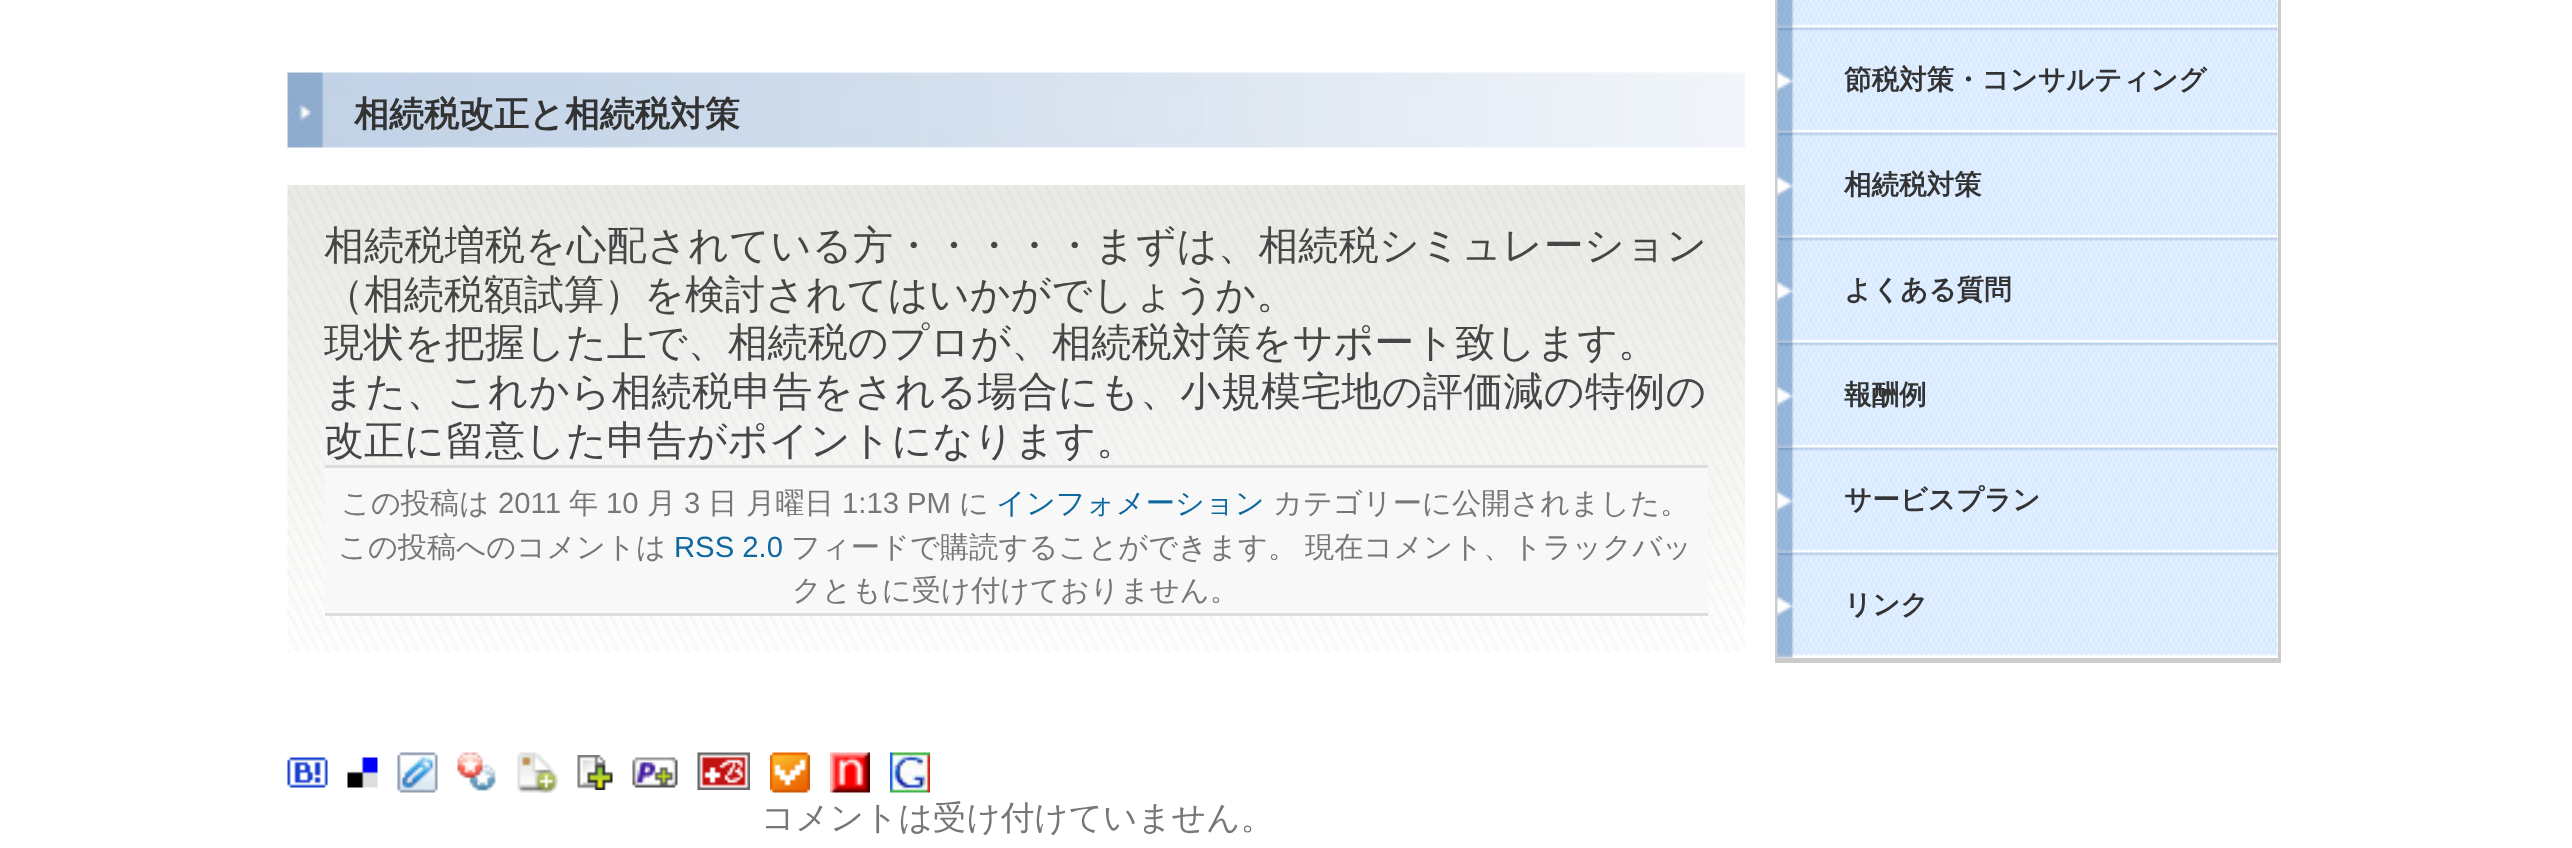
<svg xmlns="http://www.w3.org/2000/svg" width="2572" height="848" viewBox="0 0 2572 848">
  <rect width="100%" height="100%" fill="#fff"/>
  <image x="287" y="72" width="1458" height="76" href="img/1.png"/>
  <image x="287" y="185" width="1458" height="468" href="img/2.png"/>
  <path d="M325 468h1383v145H325z" fill="#f8f8f8"/>
  <path d="M325 465h1383v3H325z" fill="#ddd"/>
  <path d="M325 613h1383v3H325z" fill="#ddd"/>
  <image x="287" y="757" width="41" height="31" href="img/3.png"/>
  <image x="347" y="757" width="31" height="31" href="img/4.png"/>
  <image x="397" y="752" width="41" height="41" href="img/5.png"/>
  <image x="457" y="752" width="39" height="39" href="img/6.png"/>
  <image x="517" y="752" width="41" height="41" href="img/7.png"/>
  <image x="577" y="755" width="36" height="35" href="img/8.png"/>
  <image x="632" y="757" width="46" height="31" href="img/9.png"/>
  <image x="697" y="752" width="53" height="38" href="img/10.png"/>
  <image x="770" y="752" width="40" height="41" href="img/11.png"/>
  <image x="830" y="752" width="40" height="41" href="img/12.png"/>
  <image x="890" y="752" width="40" height="41" href="img/13.png"/>
  <path d="M2278 0h3v663H2278z" fill="#ccc"/>
  <path d="M1775 658h505v5H1775z" fill="#ccc"/>
  <path d="M1775 0h3v660H1775z" fill="#ccc"/>
  <image x="1777" y="0" width="501" height="28" href="img/14.png"/>
  <image x="1777" y="27" width="501" height="106" href="img/15.png"/>
  <image x="1777" y="132" width="501" height="106" href="img/15.png"/>
  <image x="1777" y="237" width="501" height="106" href="img/15.png"/>
  <image x="1777" y="342" width="501" height="106" href="img/15.png"/>
  <image x="1777" y="447" width="501" height="106" href="img/15.png"/>
  <image x="1777" y="552" width="501" height="106" href="img/15.png"/>
  <text x="354" y="126" font-family="WenQuanYi Zen Hei" font-size="35" font-weight="bold" fill="#333">相続税改正と相続税対策</text>
  <text x="324" y="259" font-family="WenQuanYi Zen Hei" font-size="40" font-weight="500" letter-spacing="0.25" fill="#464646">相続税増税を心配されている方・・・・・まずは、相続税シミュレーション</text>
  <g font-family="WenQuanYi Zen Hei" font-size="40" font-weight="500" fill="#464646">
    <text x="324" y="308">（相続税額試算）を検討されてはいかがでしょうか。</text>
    <text x="324" y="356">現状を把握した上で、相続税のプロが、相続税対策をサポート致します。</text>
  </g>
  <text x="324" y="405" font-family="WenQuanYi Zen Hei" font-size="40" font-weight="500" letter-spacing="0.25" fill="#464646">また、これから相続税申告をされる場合にも、小規模宅地の評価減の特例の</text>
  <text x="324" y="454" font-family="WenQuanYi Zen Hei" font-size="40" font-weight="500" fill="#464646">改正に留意した申告がポイントになります。</text>
  <text x="341" y="513" font-family="WenQuanYi Zen Hei" font-size="29.25" font-weight="500" fill="#777">この投稿は</text>
  <text x="498" y="513" font-family="Liberation Sans" font-size="29.25" fill="#777">2011</text>
  <text x="569" y="513" font-family="WenQuanYi Zen Hei" font-size="29.25" font-weight="500" fill="#777">年</text>
  <text x="606" y="513" font-family="Liberation Sans" font-size="29.25" fill="#777">10</text>
  <text x="647" y="513" font-family="WenQuanYi Zen Hei" font-size="29.25" font-weight="500" fill="#777">月</text>
  <text x="684" y="513" font-family="Liberation Sans" font-size="29.25" fill="#777">3</text>
  <g font-family="WenQuanYi Zen Hei" font-size="29.25" font-weight="500" fill="#777">
    <text x="708" y="513">日</text>
    <text x="746" y="513">月曜日</text>
  </g>
  <text x="842" y="513" font-family="Liberation Sans" font-size="29.25" fill="#777">1:13 PM</text>
  <text x="959" y="513" font-family="WenQuanYi Zen Hei" font-size="29.25" font-weight="500" fill="#777">に</text>
  <text x="996" y="513" font-family="WenQuanYi Zen Hei" font-size="29.25" font-weight="500" fill="#0e679f">インフォメーション</text>
  <g font-family="WenQuanYi Zen Hei" font-size="29.25" font-weight="500" fill="#777">
    <text x="1273" y="513">カテゴリーに公開されました。</text>
    <text x="338" y="557">この投稿へのコメントは</text>
  </g>
  <text x="674" y="557" font-family="Liberation Sans" font-size="29.25" fill="#0e679f">RSS 2.0</text>
  <g font-family="WenQuanYi Zen Hei" font-size="29.25" font-weight="500" fill="#777">
    <text x="791" y="557">フィードで購読することができます。</text>
    <text x="1305" y="557">現在コメント、トラックバッ</text>
    <text x="792" y="600">クともに受け付けておりません。</text>
  </g>
  <text x="761" y="829" font-family="WenQuanYi Zen Hei" font-size="33.6" font-weight="500" fill="#777">コメントは受け付けていません。</text>
  <g font-family="WenQuanYi Zen Hei" font-size="27.5" font-weight="bold" fill="#333">
    <text x="1844" y="89">節税対策・コンサルティング</text>
    <text x="1844" y="194">相続税対策</text>
    <text x="1844" y="299">よくある質問</text>
    <text x="1844" y="404">報酬例</text>
    <text x="1844" y="509">サービスプラン</text>
    <text x="1844" y="614">リンク</text>
  </g>
</svg>
